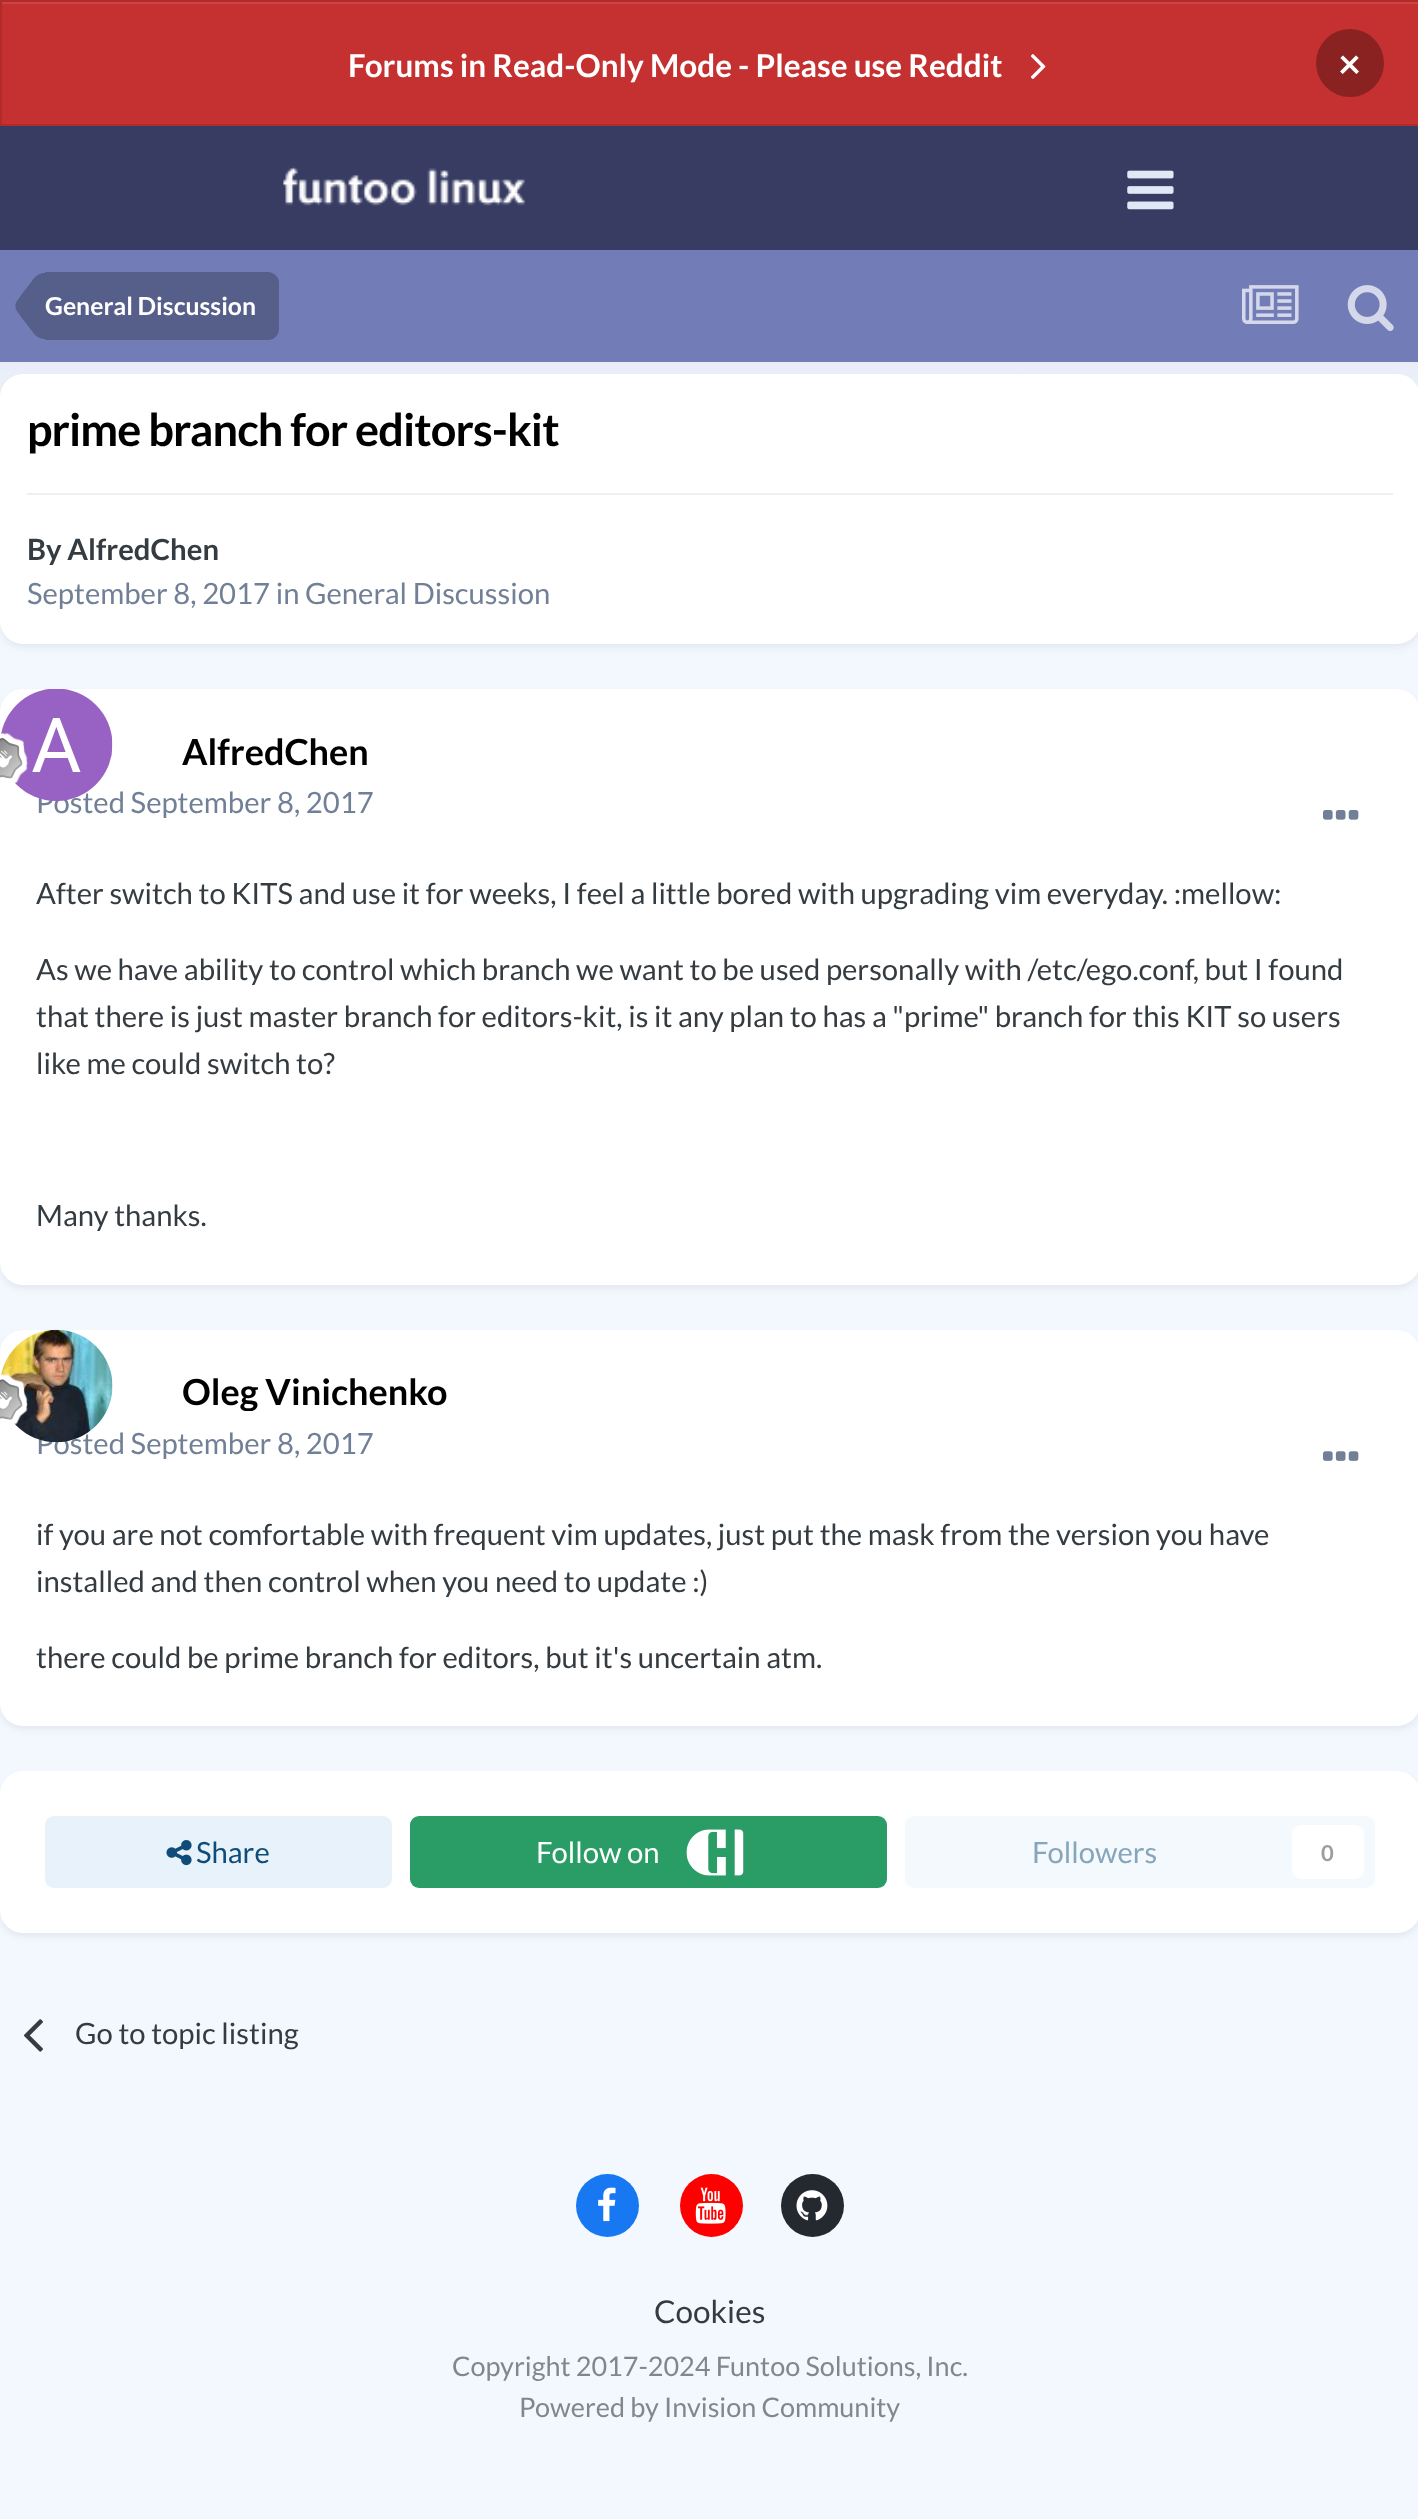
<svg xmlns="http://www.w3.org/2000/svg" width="1418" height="2519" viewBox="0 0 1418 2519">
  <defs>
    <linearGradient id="g1" gradientUnits="userSpaceOnUse" x1="710" y1="0" x2="710" y2="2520"><stop offset="0" stop-color="#b0b6d6"/><stop offset="0.17" stop-color="#f3f7fe"/></linearGradient>
    <clipPath id="clip1"><path d="M182 1375h266v36H182z"/></clipPath>
  </defs>
  <rect width="100%" height="100%" fill="#fff"/>
  <path d="M0 362h1418v2157H0z" fill="url(#g1)"/>
  <path d="M2 4h1416v120H2z" fill="#c53030"/>
  <path d="M2 2h1416v2H2z" fill="#cb4545"/>
  <path d="M1 1h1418v124H1z" fill="none" stroke="#b12b2b" stroke-width="2"/>
  <image x="1030" y="54" width="16" height="25" href="img/1.png"/>
  <circle cx="1350" cy="63" r="34" fill="#8a2222"/>
  <path d="M0 126h1418v124H0z" fill="#383c62"/>
  <image x="283" y="166" width="242" height="40" href="img/2.png"/>
  <image x="1127" y="170" width="47" height="40" href="img/3.png"/>
  <path d="M0 250h1418v112H0z" fill="#727db8"/>
  <path d="M45 272H268C274 272 279 277 279 283V329C279 335 274 340 268 340H45Z" fill="#565e8a"/>
  <path d="M45 306V339C40 339 35.5 336.5 32 331L21.5 317.5L16 309.5C15.5 308 15.5 307 15.5 306Z" fill="#565e8a"/>
  <path d="M45 306H15.5C15.5 305 15.5 304 16 302.5L21.5 294.5L32 281C35.5 275.5 40 273 45 273Z" fill="#565e8a"/>
  <image x="1242" y="285" width="57" height="39" href="img/4.png"/>
  <image x="1347" y="285" width="47" height="46" href="img/5.png"/>
  <rect x="2" y="380" width="1416" height="266" rx="20" fill="#2d37481a" filter="blur(4.5px)"/>
  <rect y="374" width="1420" height="270" rx="23" fill="#fff"/>
  <path d="M27 493h1366v2H27z" fill="#efeff0"/>
  <rect x="2" y="695" width="1416" height="592" rx="20" fill="#2d37481a" filter="blur(4.5px)"/>
  <rect y="689" width="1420" height="596" rx="23" fill="#fff"/>
  <image x="1323" y="810" width="36" height="10" href="img/8.png"/>
  <rect x="2" y="1337" width="1416" height="391" rx="20" fill="#2d37481a" filter="blur(4.5px)"/>
  <rect y="1330" width="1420" height="396" rx="23" fill="#fff"/>
  <image x="1323" y="1451" width="36" height="10" href="img/11.png"/>
  <rect x="2" y="1778" width="1416" height="157" rx="20" fill="#2d37481a" filter="blur(4.5px)"/>
  <rect y="1771" width="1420" height="162" rx="23" fill="#fff"/>
  <rect x="45" y="1816" width="347" height="72" rx="9" fill="#e8f2fa"/>
  <image x="166" y="1840" width="26" height="26" href="img/12.png"/>
  <rect x="410" y="1816" width="477" height="72" rx="9" fill="#2a9c66"/>
  <image x="686" y="1829" width="58" height="47" href="img/13.png"/>
  <rect x="905" y="1816" width="470" height="72" rx="9" fill="#f4f9fd"/>
  <rect x="1292" y="1825" width="72" height="54" rx="9" fill="#fff"/>
  <image x="24" y="2019" width="19" height="33" href="img/14.png"/>
  <circle cx="607.5" cy="2205.5" r="31.5" fill="#1778f2"/>
  <image x="598" y="2187" width="18" height="35" href="img/15.png"/>
  <circle cx="711.5" cy="2205.5" r="31.5" fill="#f00"/>
  <image x="695" y="2187" width="31" height="37" href="img/16.png"/>
  <circle cx="812.5" cy="2205.5" r="31.5" fill="#24292f"/>
  <image x="796" y="2190" width="32" height="31" href="img/17.png"/>
  <text x="348" y="77" font-family="Lato" font-size="31.5" font-weight="bold" fill="#fff">Forums in Read-Only Mode - Please use Reddit</text>
  <text x="1338" y="78" font-family="Lato" font-size="40" font-weight="bold" fill="#fff">×</text>
  <text x="45" y="315" font-family="Lato" font-size="24.75" font-weight="bold" fill="#fff">General Discussion</text>
  <text x="27" y="446" font-family="Lato" font-size="45" font-weight="bold" letter-spacing="-0.9" fill="#000">prime branch for editors-kit</text>
  <text x="27" y="560" font-family="Lato" font-size="29.25" font-weight="bold" fill="#353c41">By AlfredChen</text>
  <text x="27" y="604" font-family="Lato" font-size="29.25" fill="#718096">September 8, 2017 in General Discussion</text>
  <text x="182" y="765" font-family="Lato" font-size="36" font-weight="bold" fill="#000">AlfredChen</text>
  <text x="36" y="813" font-family="Lato" font-size="29.25" fill="#718096">Posted September 8, 2017</text>
  <image x="0" y="689" width="113" height="112" href="img/6.png"/>
  <image x="0" y="733" width="28" height="51" href="img/7.png"/>
  <g font-family="Lato" font-size="29.25" fill="#353c41">
    <text x="36" y="904">After switch to KITS and use it for weeks, I feel a little bored with upgrading vim everyday. :mellow:</text>
    <text x="36" y="980">As we have ability to control which branch we want to be used personally with /etc/ego.conf, but I found</text>
    <text x="36" y="1027">that there is just master branch for editors-kit, is it any plan to has a "prime" branch for this KIT so users</text>
    <text x="36" y="1074">like me could switch to?</text>
    <text x="36" y="1226">Many thanks.</text>
  </g>
  <g clip-path="url(#clip1)">
    <text x="182" y="1405" font-family="Lato" font-size="36" font-weight="bold" fill="#000">Oleg Vinichenko</text>
  </g>
  <text x="36" y="1454" font-family="Lato" font-size="29.25" fill="#718096">Posted September 8, 2017</text>
  <image x="1" y="1329" width="112" height="114" href="img/9.png"/>
  <image x="0" y="1374" width="28" height="51" href="img/10.png"/>
  <g font-family="Lato" font-size="29.25" fill="#353c41">
    <text x="36" y="1545">if you are not comfortable with frequent vim updates, just put the mask from the version you have</text>
    <text x="36" y="1592">installed and then control when you need to update :)</text>
    <text x="36" y="1668">there could be prime branch for editors, but it's uncertain atm.</text>
  </g>
  <text x="196" y="1863" font-family="Lato" font-size="29.25" fill="#0e4c79">Share</text>
  <text x="536" y="1863" font-family="Lato" font-size="29.25" fill="#fff">Follow on</text>
  <text x="1032" y="1863" font-family="Lato" font-size="29.25" fill="#87a6bc">Followers</text>
  <text x="1321" y="1861" font-family="Lato" font-size="22" font-weight="bold" fill="#9a9ea0">0</text>
  <text x="75" y="2044" font-family="Lato" font-size="29.25" fill="#353c41">Go to topic listing</text>
  <text x="654" y="2323" font-family="Lato" font-size="31.5" fill="#353c41">Cookies</text>
  <g font-family="Lato" font-size="27" fill="#81878d">
    <text x="452" y="2376">Copyright 2017-2024 Funtoo Solutions, Inc.</text>
    <text x="519" y="2417">Powered by Invision Community</text>
  </g>
</svg>
